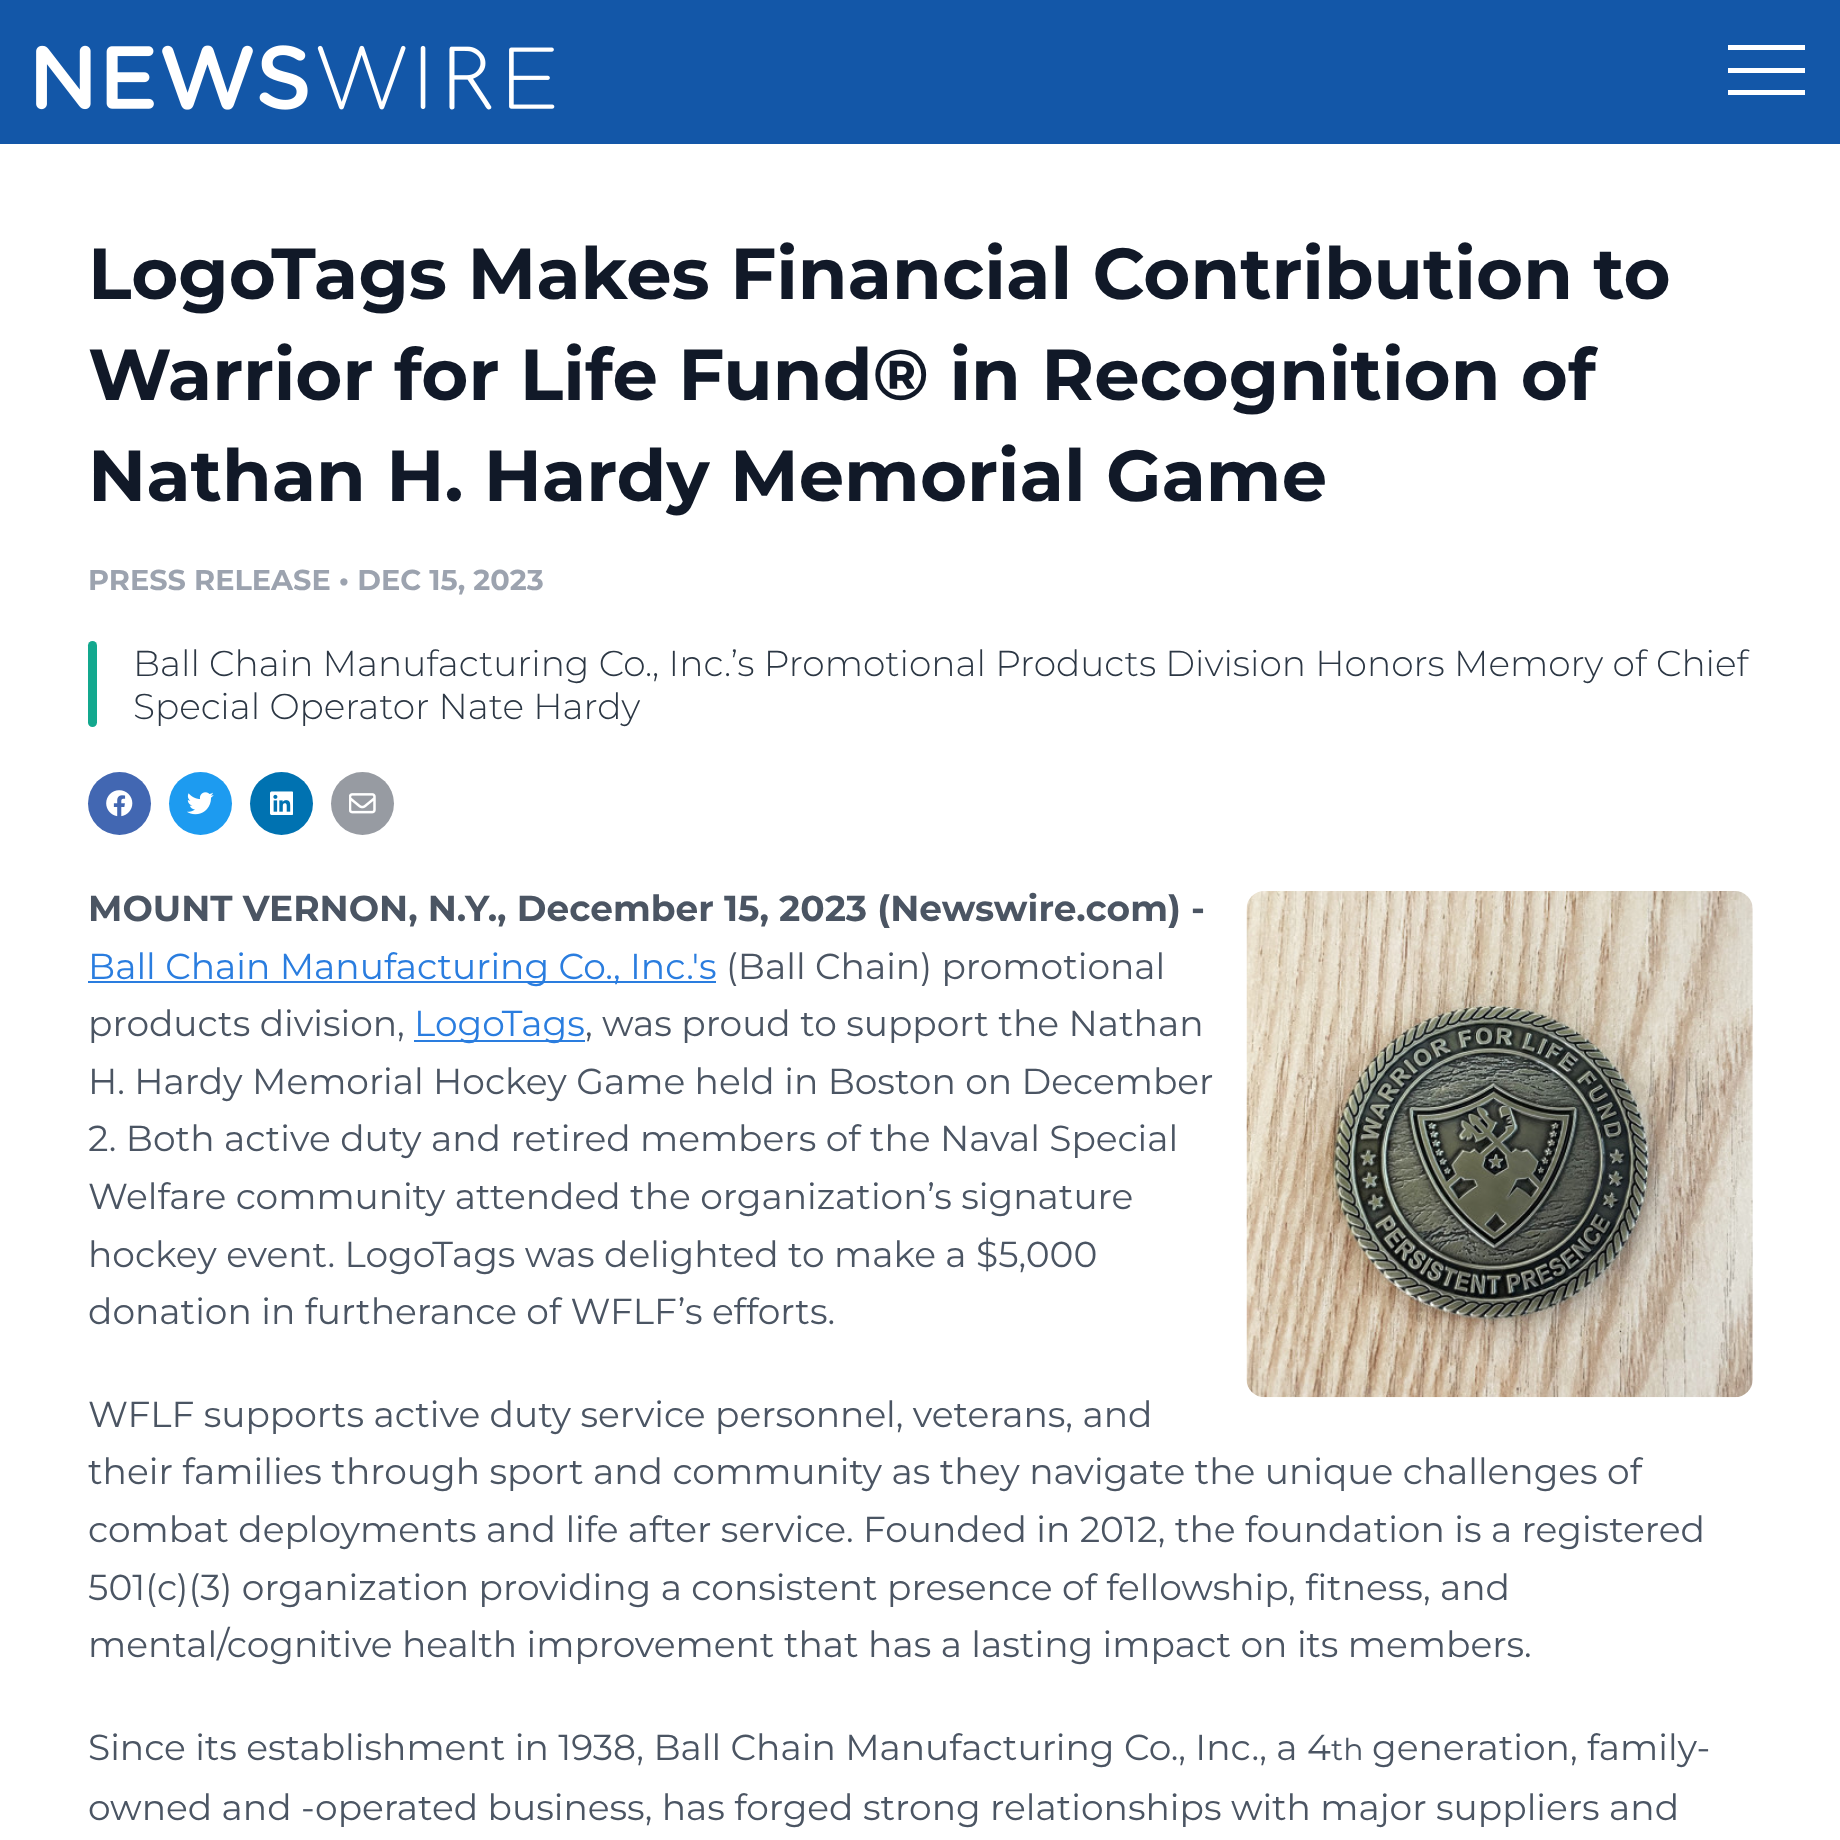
<svg xmlns="http://www.w3.org/2000/svg" width="1840" height="1840" viewBox="0 0 1840 1840">
  <rect width="100%" height="100%" fill="#fff"/>
  <path d="M0 0h1840v144H0z" fill="#1357a8"/>
  <image x="36" y="45" width="519" height="65" href="img/1.png"/>
  <path d="M1728 68h77v5H1728z" fill="#fff"/>
  <path d="M1728 45h77v5H1728z" fill="#fff"/>
  <path d="M1728 90h77v5H1728z" fill="#fff"/>
  <rect x="88" y="641" width="9" height="86" rx="4.5" fill="#13a88e"/>
  <circle cx="119.5" cy="803.5" r="31.5" fill="#4267b2"/>
  <image x="106" y="790" width="27" height="27" href="img/2.png"/>
  <circle cx="200.5" cy="803.5" r="31.5" fill="#1d9bf0"/>
  <image x="187" y="792" width="27" height="23" href="img/3.png"/>
  <circle cx="281.5" cy="803.5" r="31.5" fill="#0072b1"/>
  <image x="270" y="791" width="23" height="24" href="img/4.png"/>
  <circle cx="362.5" cy="803.5" r="31.5" fill="#979ba2"/>
  <image x="349" y="793" width="27" height="21" href="img/5.png"/>
  <image x="1246" y="891" width="507" height="507" href="img/6.png"/>
  <path d="M88 981h628v2H88z" fill="#2a7ddf"/>
  <path d="M414 1040h171v2H414z" fill="#2a7ddf"/>
  <g font-family="Montserrat" font-size="72" font-weight="bold" fill="#111928">
    <text x="88" y="299">LogoTags Makes Financial Contribution to</text>
    <text x="88" y="400">Warrior for Life Fund® in Recognition of</text>
    <text x="88" y="501">Nathan H. Hardy Memorial Game</text>
  </g>
  <text x="88" y="590" font-family="Montserrat" font-size="28.75" font-weight="bold" fill="#9ca3af">PRESS RELEASE • DEC 15, 2023</text>
  <g font-family="Montserrat" font-size="36" font-weight="300" fill="#2c3744">
    <text x="133" y="676">Ball Chain Manufacturing Co., Inc.’s Promotional Products Division Honors Memory of Chief</text>
    <text x="133" y="719">Special Operator Nate Hardy</text>
  </g>
  <text x="88" y="921" font-family="Montserrat" font-size="36" font-weight="bold" fill="#4b5563">MOUNT VERNON, N.Y., December 15, 2023 (Newswire.com) -</text>
  <text x="88" y="979" font-family="Montserrat" font-size="36" fill="#2a7ddf">Ball Chain Manufacturing Co., Inc.'s</text>
  <g font-family="Montserrat" font-size="36" fill="#4b5563">
    <text x="726" y="979">(Ball Chain) promotional</text>
    <text x="88" y="1036">products division,</text>
  </g>
  <text x="414" y="1036" font-family="Montserrat" font-size="36" fill="#2a7ddf">LogoTags</text>
  <g font-family="Montserrat" font-size="36" fill="#4b5563">
    <text x="585" y="1036">, was proud to support the Nathan</text>
    <text x="88" y="1094">H. Hardy Memorial Hockey Game held in Boston on December</text>
    <text x="88" y="1151">2. Both active duty and retired members of the Naval Special</text>
    <text x="88" y="1209">Welfare community attended the organization’s signature</text>
    <text x="88" y="1267">hockey event. LogoTags was delighted to make a $5,000</text>
    <text x="88" y="1324">donation in furtherance of WFLF’s efforts.</text>
    <text x="88" y="1427">WFLF supports active duty service personnel, veterans, and</text>
    <text x="88" y="1484">their families through sport and community as they navigate the unique challenges of</text>
    <text x="88" y="1542">combat deployments and life after service. Founded in 2012, the foundation is a registered</text>
    <text x="88" y="1600">501(c)(3) organization providing a consistent presence of fellowship, fitness, and</text>
    <text x="88" y="1657">mental/cognitive health improvement that has a lasting impact on its members.</text>
    <text x="88" y="1760">Since its establishment in 1938, Ball Chain Manufacturing Co., Inc., a 4</text>
  </g>
  <text x="1331" y="1760" font-family="Montserrat" font-size="30" fill="#4b5563">th</text>
  <g font-family="Montserrat" font-size="36" fill="#4b5563">
    <text x="1372" y="1760">generation, family-</text>
    <text x="88" y="1820">owned and -operated business, has forged strong relationships with major suppliers and</text>
  </g>
</svg>
